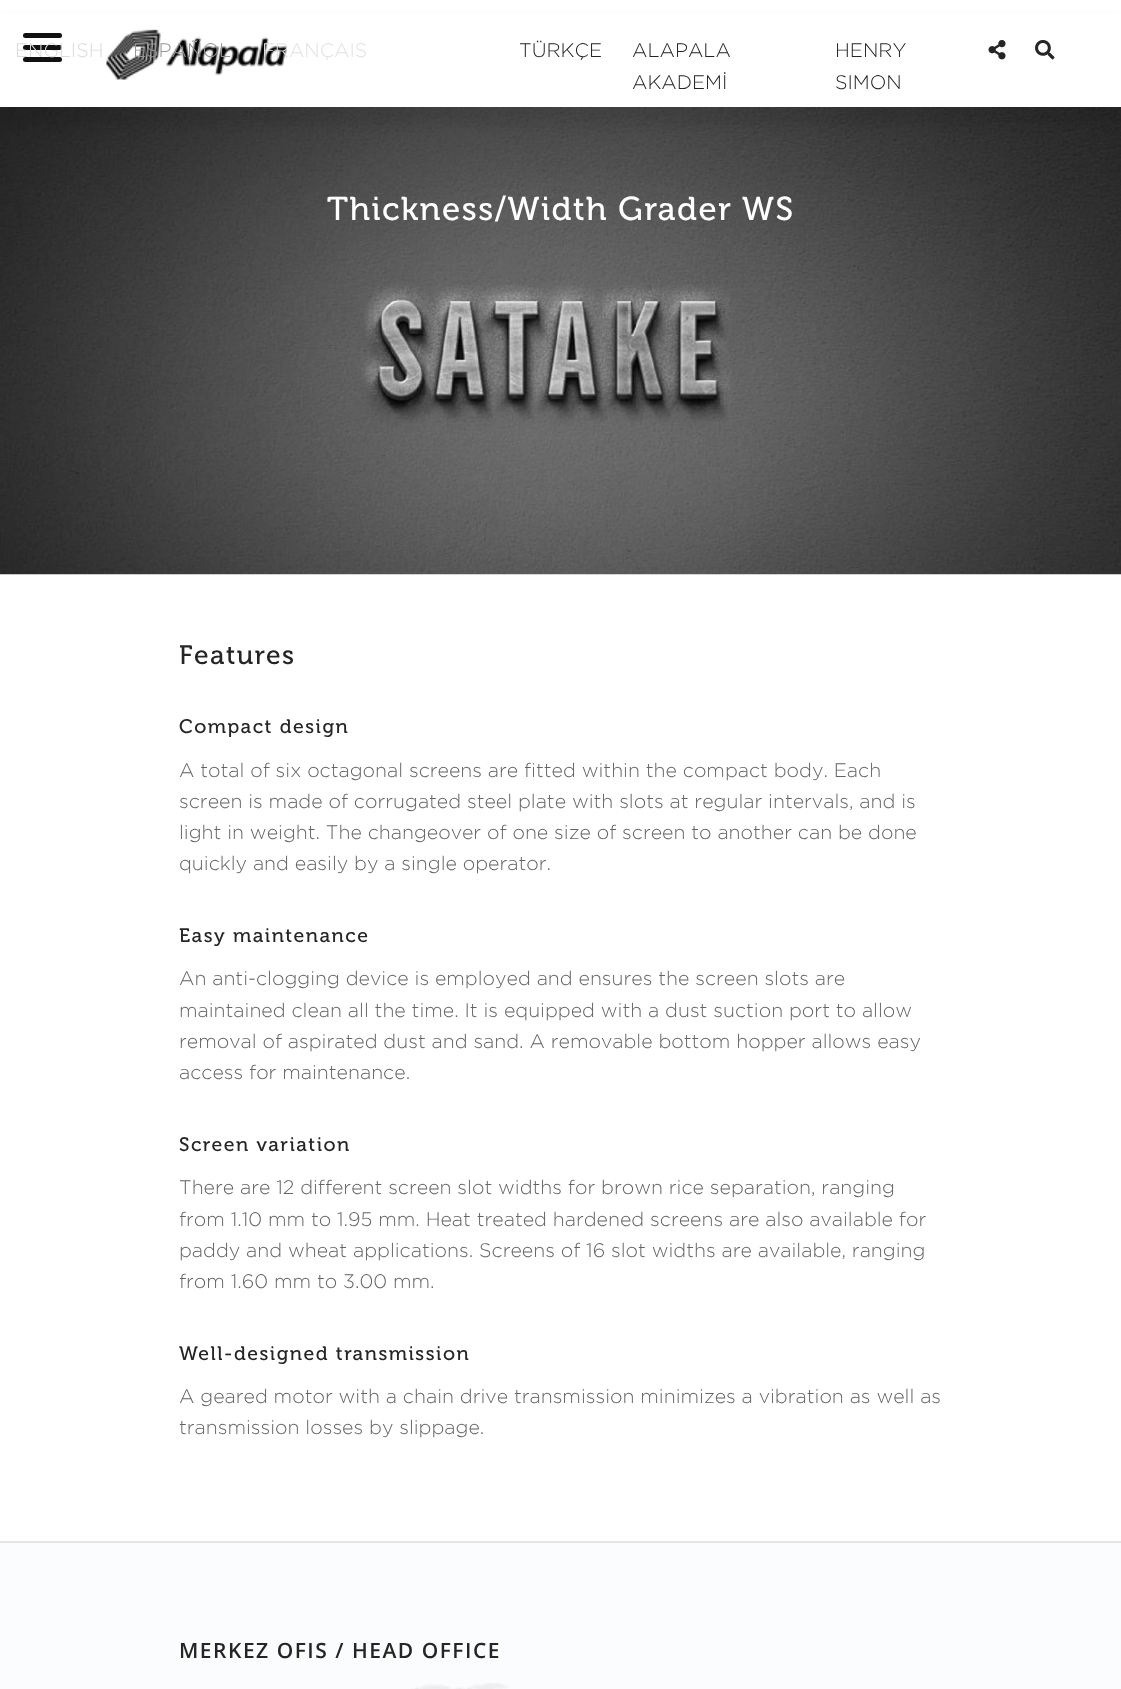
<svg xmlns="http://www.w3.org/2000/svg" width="1121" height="1689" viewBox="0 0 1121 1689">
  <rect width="100%" height="100%" fill="#fff"/>
  <image x="0" y="107" width="1121" height="468" href="img/4.png"/>
  <path d="M0 18h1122v107H0z" fill="#0000000f" filter="blur(4.5px)"/>
  <path d="M0 14h1121v93H0z" fill="#fff"/>
  <rect x="23" y="45" width="39" height="5" rx="2.5" fill="#111"/>
  <rect x="23" y="33" width="39" height="5" rx="2.5" fill="#111"/>
  <rect x="23" y="57" width="39" height="5" rx="2.5" fill="#111"/>
  <image x="106" y="29" width="181" height="51" href="img/1.png"/>
  <image x="988" y="40" width="18" height="20" href="img/2.png"/>
  <image x="1035" y="40" width="20" height="20" href="img/3.png"/>
  <path d="M0 1543h1121v146H0z" fill="#fbfcfd"/>
  <path d="M0 1541h1121v2H0z" fill="#e5e5e5"/>
  <image x="411" y="1683" width="97" height="6" href="img/5.png"/>
  <text x="15" y="57" font-family="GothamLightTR" font-size="19.5" font-weight="300" fill="#dbdbdb">ENGLISH</text>
  <text x="133" y="57" font-family="GothamLightTR" font-size="19.5" font-weight="300" fill="#949494">ESPAÑOL</text>
  <text x="262" y="57" font-family="GothamLightTR" font-size="19.5" font-weight="300" fill="#e2e2e2">FRANÇAIS</text>
  <g font-family="GothamLightTR" font-size="19.5" font-weight="300" fill="#252525">
    <text x="519" y="57">TÜRKÇE</text>
    <text x="632" y="57">ALAPALA</text>
    <text x="632" y="89">AKADEMİ</text>
    <text x="835" y="57">HENRY</text>
    <text x="835" y="89">SIMON</text>
  </g>
  <text x="327" y="220" font-family="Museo" font-size="33" font-style="italic" letter-spacing="1.5" fill="#fff">Thickness/Width Grader WS</text>
  <text x="179" y="664" font-family="Museo" font-size="26.5" font-style="italic" letter-spacing="1.5" fill="#252525">Features</text>
  <text x="179" y="733" font-family="Museo" font-size="19.5" font-style="italic" letter-spacing="1.5" fill="#252525">Compact design</text>
  <g font-family="GothamLightTR" font-size="19.5" font-weight="300" fill="#646464">
    <text x="179" y="777">A total of six octagonal screens are fitted within the compact body. Each</text>
    <text x="179" y="808">screen is made of corrugated steel plate with slots at regular intervals, and is</text>
    <text x="179" y="839">light in weight. The changeover of one size of screen to another can be done</text>
    <text x="179" y="870">quickly and easily by a single operator.</text>
  </g>
  <text x="179" y="942" font-family="Museo" font-size="19.5" font-style="italic" letter-spacing="1.5" fill="#252525">Easy maintenance</text>
  <g font-family="GothamLightTR" font-size="19.5" font-weight="300" fill="#646464">
    <text x="179" y="985">An anti-clogging device is employed and ensures the screen slots are</text>
    <text x="179" y="1017">maintained clean all the time. It is equipped with a dust suction port to allow</text>
    <text x="179" y="1048">removal of aspirated dust and sand. A removable bottom hopper allows easy</text>
    <text x="179" y="1079">access for maintenance.</text>
  </g>
  <text x="179" y="1151" font-family="Museo" font-size="19.5" font-style="italic" letter-spacing="1.5" fill="#252525">Screen variation</text>
  <g font-family="GothamLightTR" font-size="19.5" font-weight="300" fill="#646464">
    <text x="179" y="1194">There are 12 different screen slot widths for brown rice separation, ranging</text>
    <text x="179" y="1226">from 1.10 mm to 1.95 mm. Heat treated hardened screens are also available for</text>
    <text x="179" y="1257">paddy and wheat applications. Screens of 16 slot widths are available, ranging</text>
    <text x="179" y="1288">from 1.60 mm to 3.00 mm.</text>
  </g>
  <text x="179" y="1360" font-family="Museo" font-size="19.5" font-style="italic" letter-spacing="1.5" fill="#252525">Well-designed transmission</text>
  <g font-family="GothamLightTR" font-size="19.5" font-weight="300" fill="#646464">
    <text x="179" y="1403">A geared motor with a chain drive transmission minimizes a vibration as well as</text>
    <text x="179" y="1434">transmission losses by slippage.</text>
  </g>
  <text x="179" y="1658" font-family="Open Sans" font-size="21" font-weight="600" letter-spacing="1.5" fill="#252525">MERKEZ OFIS / HEAD OFFICE</text>
</svg>
